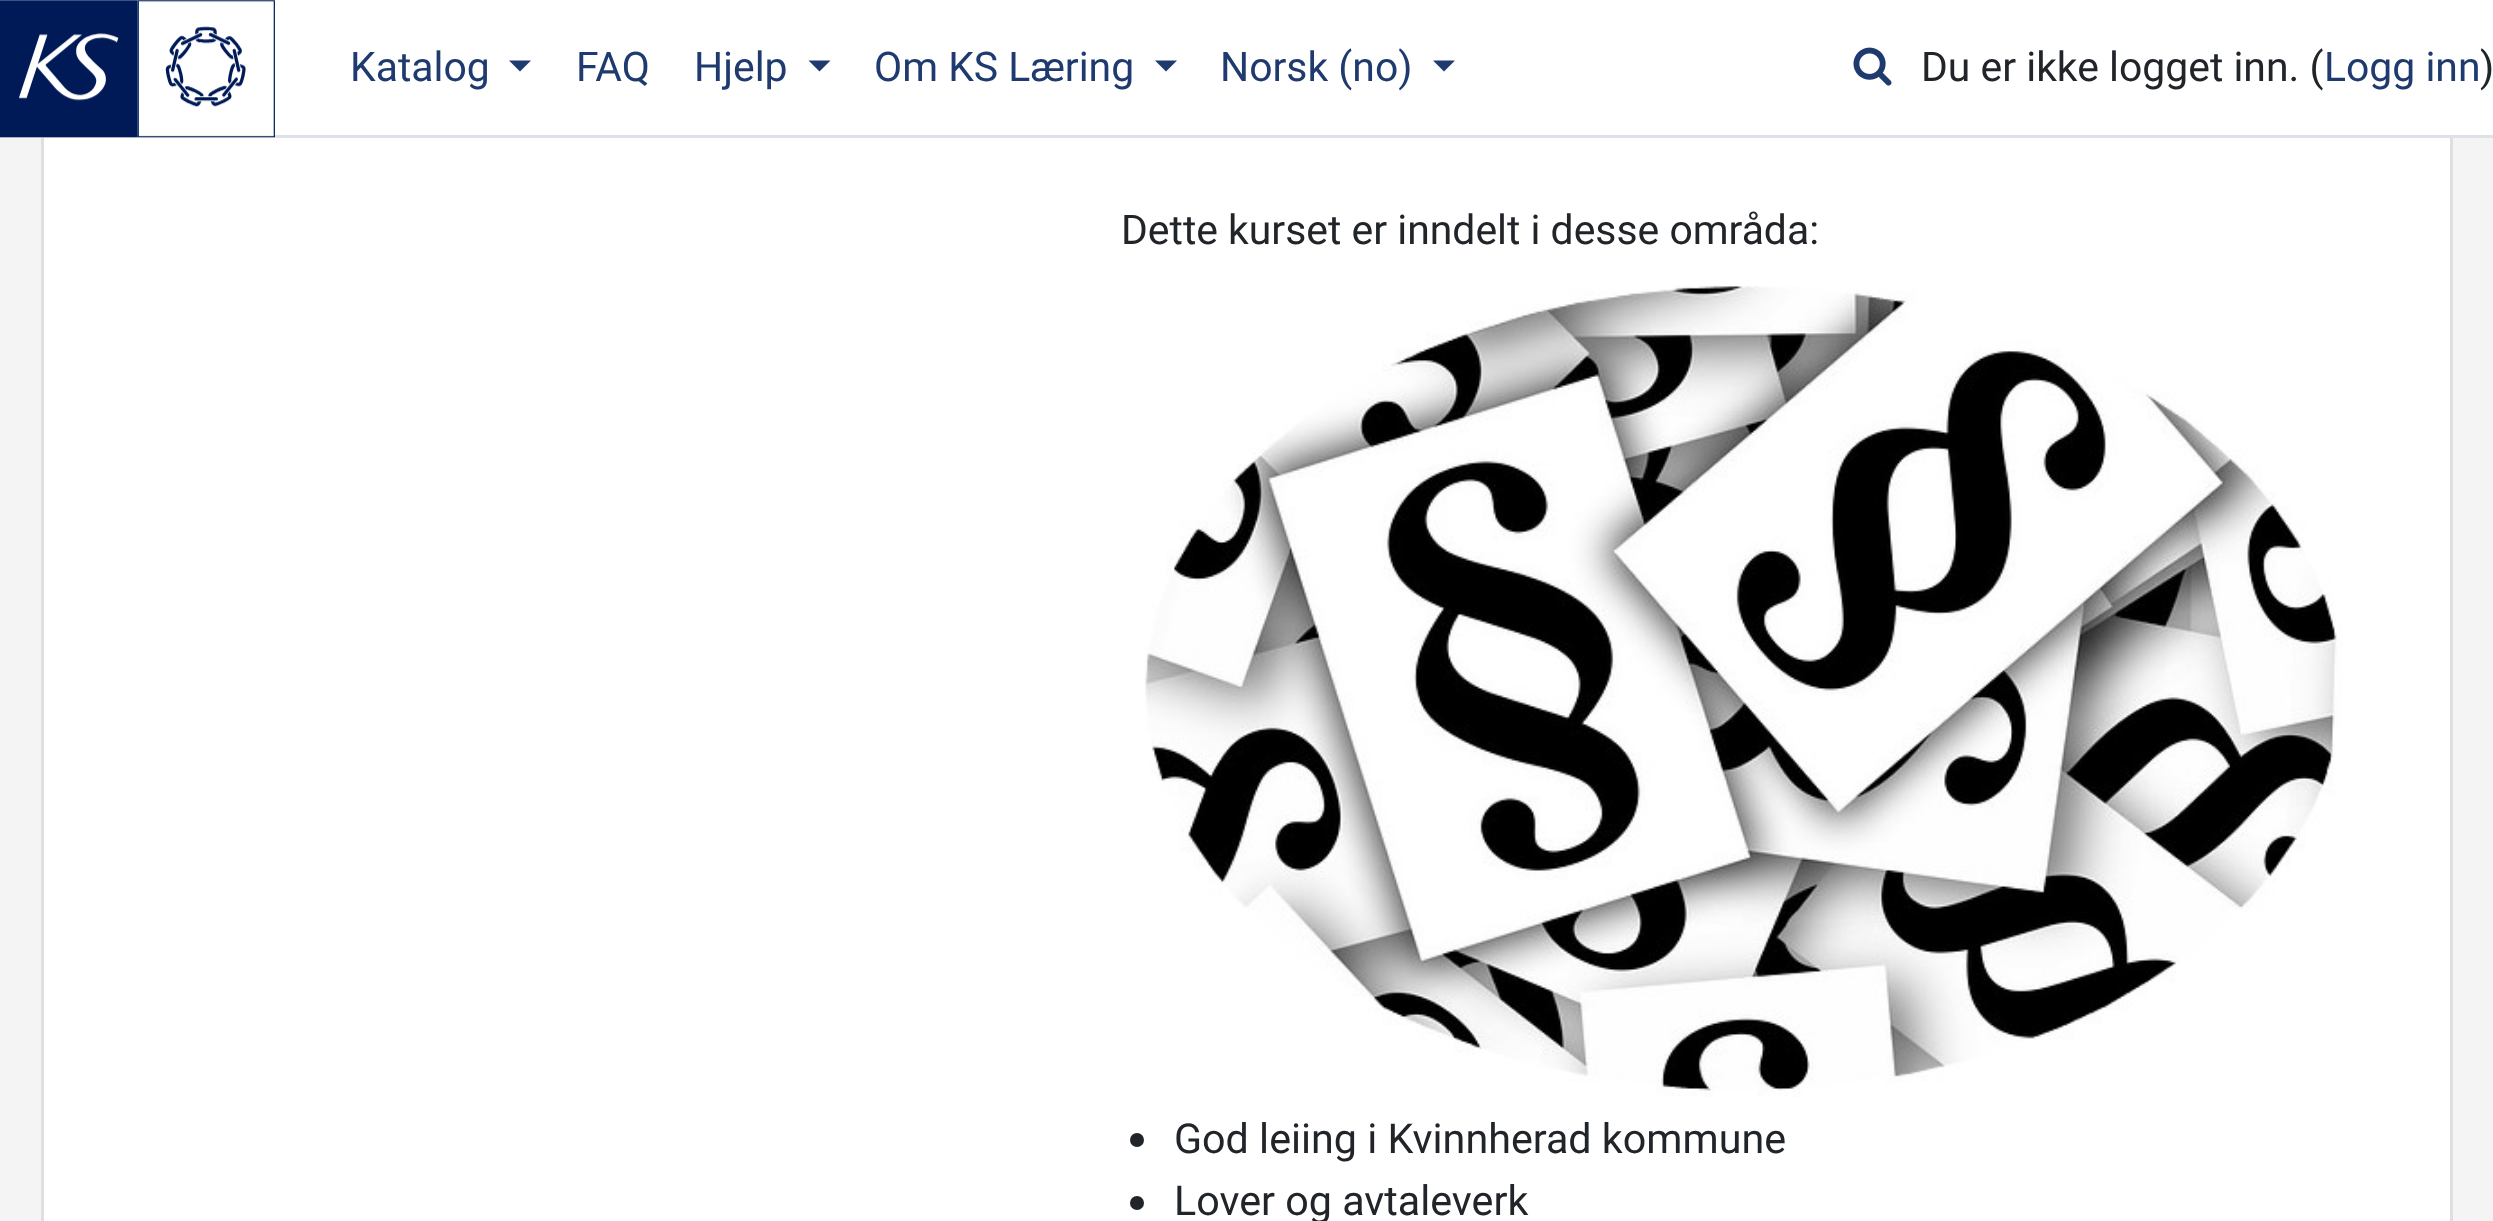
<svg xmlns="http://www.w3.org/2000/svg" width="2493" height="1221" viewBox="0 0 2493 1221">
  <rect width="100%" height="100%" fill="#f4f4f4"/>
  <path d="M44 138h2406v1083H44z" fill="#fff"/>
  <path d="M42.5 -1.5h2409v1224H42.5z" fill="none" stroke="#dfdfdf" stroke-width="3"/>
  <path d="M0 0h2493v135H0z" fill="#fff"/>
  <path d="M0 135h2493v3H0z" fill="#dee2e6"/>
  <image x="0" y="0" width="275" height="138" href="img/1.png"/>
  <path d="M509 60.5H531L520 71.5Z" fill="#1e3a6e"/>
  <path d="M808.5 60.5H830.5L819.5 71.5Z" fill="#1e3a6e"/>
  <path d="M1155 60.5H1177L1166 71.5Z" fill="#1e3a6e"/>
  <path d="M1433 60.5H1455L1444 71.5Z" fill="#1e3a6e"/>
  <image x="1853" y="47" width="39" height="39" href="img/2.png"/>
  <image x="1145" y="285" width="1198" height="812" href="img/3.png"/>
  <circle cx="1137" cy="1140" r="7" fill="#212529"/>
  <circle cx="1137" cy="1203" r="7" fill="#212529"/>
  <g font-family="Roboto" font-size="40.9" fill="#1e3a6e">
    <text x="350" y="81">Katalog</text>
    <text x="576" y="81">FAQ</text>
    <text x="694" y="81">Hjelp</text>
    <text x="874" y="81">Om KS Læring</text>
    <text x="1220" y="81">Norsk (no)</text>
  </g>
  <text x="1921" y="81" font-family="Roboto" font-size="40.9" fill="#212529">Du er ikke logget inn. (</text>
  <text x="2324" y="81" font-family="Roboto" font-size="40.9" fill="#1e3a6e">Logg inn</text>
  <g font-family="Roboto" font-size="40.9" fill="#212529">
    <text x="2480" y="81">)</text>
    <text x="1121" y="244">Dette kurset er inndelt i desse områda:</text>
  </g>
  <g font-family="Roboto" font-size="41.25" fill="#212529">
    <text x="1174" y="1153">God leiing i Kvinnherad kommune</text>
    <text x="1174" y="1215">Lover og avtaleverk</text>
  </g>
</svg>
